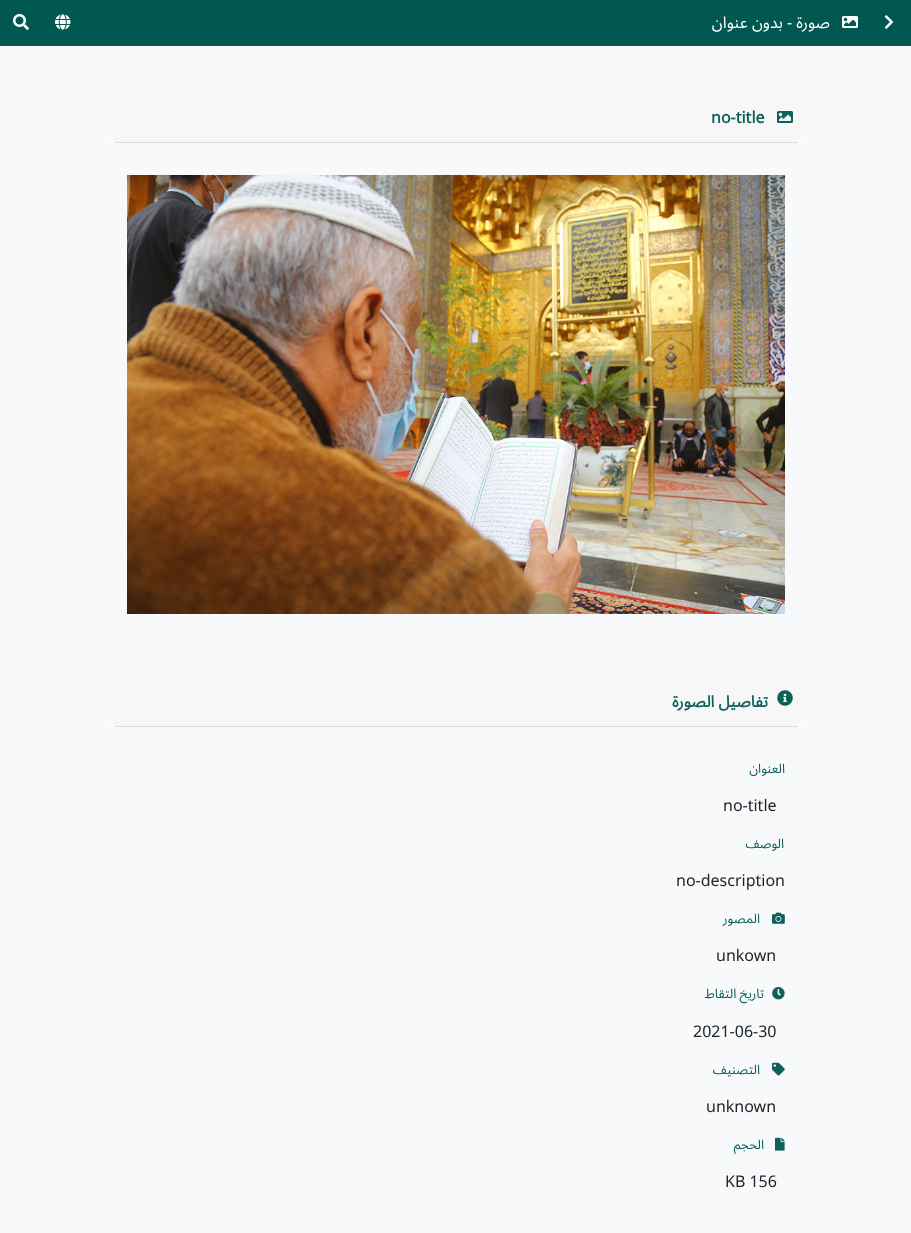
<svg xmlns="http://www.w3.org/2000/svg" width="911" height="1233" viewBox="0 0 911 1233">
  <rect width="100%" height="100%" fill="#f8f9fa"/>
  <path d="M0 0h911v46H0z" fill="#015851"/>
  <image x="884" y="15" width="10" height="14" href="img/1.png"/>
  <image x="842" y="16" width="16" height="12" href="img/2.png"/>
  <image x="55" y="14" width="16" height="16" href="img/3.png"/>
  <image x="13" y="14" width="16" height="16" href="img/4.png"/>
  <rect x="111" y="94" width="690" height="49" rx="4" fill="#fff"/>
  <rect x="111" y="94" width="690" height="49" rx="7" fill="#f7f7f7"/>
  <path d="M115 142h683v1H115z" fill="#0000001f"/>
  <image x="777" y="111" width="16" height="12" href="img/5.png"/>
  <image x="127" y="175" width="658" height="439" href="img/6.png"/>
  <rect x="111" y="678" width="690" height="49" rx="4" fill="#fff"/>
  <rect x="111" y="678" width="690" height="49" rx="7" fill="#f7f7f7"/>
  <path d="M115 726h683v1H115z" fill="#0000001f"/>
  <image x="777" y="690" width="16" height="16" href="img/7.png"/>
  <image x="772" y="912" width="13" height="12" href="img/8.png"/>
  <image x="772" y="987" width="13" height="13" href="img/9.png"/>
  <image x="772" y="1062" width="13" height="14" href="img/10.png"/>
  <image x="775" y="1137" width="10" height="14" href="img/11.png"/>
  <text x="830" y="28" font-family="Noto Sans Arabic" font-size="16" direction="rtl" fill="#fff">صورة - بدون عنوان</text>
  <text x="711" y="123" font-family="Noto Sans Arabic" font-size="16" font-weight="bold" fill="#0e615a">no-title</text>
  <text x="768" y="707" font-family="Noto Sans Arabic" font-size="16" font-weight="bold" direction="rtl" fill="#0e615a">تفاصيل الصورة</text>
  <text x="785" y="773" font-family="Noto Sans Arabic" font-size="13" direction="rtl" fill="#0e615a">العنوان</text>
  <text x="723" y="811" font-family="Noto Sans Arabic" font-size="16" fill="#212529">no-title</text>
  <text x="784" y="848" font-family="Noto Sans Arabic" font-size="13" direction="rtl" fill="#0e615a">الوصف</text>
  <text x="676" y="886" font-family="Noto Sans Arabic" font-size="16" fill="#212529">no-description</text>
  <text x="760" y="923" font-family="Noto Sans Arabic" font-size="13" direction="rtl" fill="#0e615a">المصور</text>
  <text x="716" y="961" font-family="Noto Sans Arabic" font-size="16" fill="#212529">unkown</text>
  <text x="764" y="998" font-family="Noto Sans Arabic" font-size="13" direction="rtl" fill="#0e615a">تاريخ التقاط</text>
  <text x="693" y="1037" font-family="Noto Sans Arabic" font-size="16" fill="#212529">2021-06-30</text>
  <text x="760" y="1074" font-family="Noto Sans Arabic" font-size="13" direction="rtl" fill="#0e615a">التصنيف</text>
  <text x="706" y="1112" font-family="Noto Sans Arabic" font-size="16" fill="#212529">unknown</text>
  <text x="764" y="1149" font-family="Noto Sans Arabic" font-size="13" direction="rtl" fill="#0e615a">الحجم</text>
  <text x="725" y="1187" font-family="Noto Sans Arabic" font-size="16" fill="#212529">KB 156</text>
</svg>
